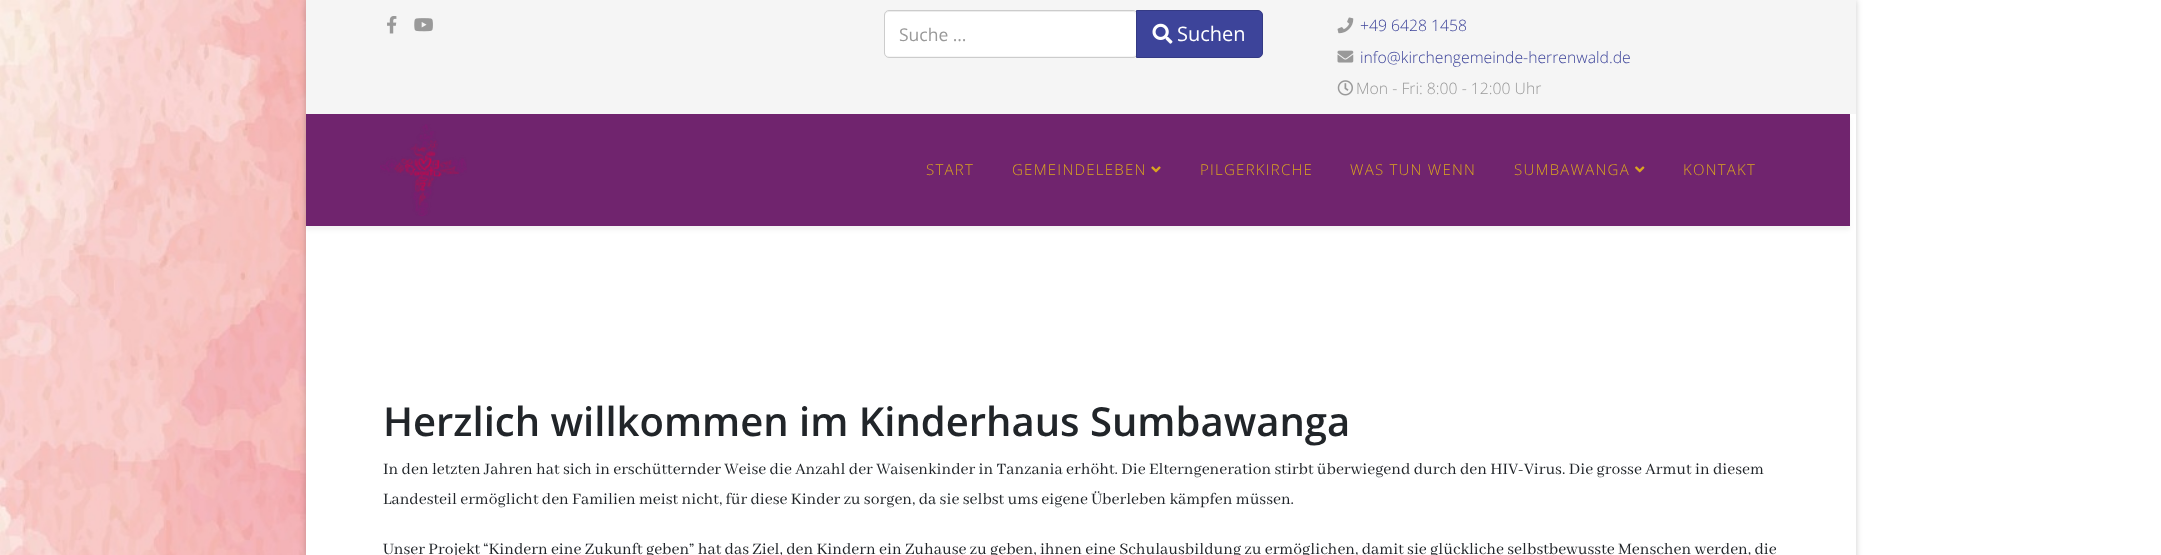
<svg xmlns="http://www.w3.org/2000/svg" width="2161" height="555" viewBox="0 0 2161 555">
  <rect width="100%" height="100%" fill="#fff"/>
  <image x="0" y="0" width="306" height="555" href="img/1.png"/>
  <path d="M306 0h1550v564H306z" fill="#00000033" filter="blur(3px)"/>
  <path d="M306 114h1550v441H306z" fill="#fff"/>
  <path d="M306 0h1550v114H306z" fill="#f5f5f5"/>
  <image x="387" y="16" width="10" height="18" href="img/2.png"/>
  <image x="414" y="18" width="19" height="14" href="img/3.png"/>
  <rect x="885" y="11" width="251" height="45" rx="4" fill="#fff"/>
  <path d="M889 12H1132C1135 12 1136 14 1136 16V15C1136 13 1134 11 1132 11H889C887 11 885 13 885 15V16C885 14 887 12 889 12Z" fill="#00000012"/>
  <rect x="884.5" y="10.5" width="253" height="47" rx="4.5" fill="none" stroke="#ccc"/>
  <path d="M1136.5 10.5H1258C1260.5 10.5 1262.5 12.5 1262.5 15V53C1262.5 55.5 1260.5 57.5 1258 57.5H1136.5Z" fill="#3d449a" stroke="#343a84"/>
  <image x="1152" y="23" width="21" height="21" href="img/4.png"/>
  <image x="1337" y="17" width="17" height="17" href="img/5.png"/>
  <image x="1337" y="50" width="17" height="13" href="img/6.png"/>
  <image x="1337" y="80" width="16" height="16" href="img/7.png"/>
  <path d="M306 118h1544v112H306z" fill="#0000000d" filter="blur(2px)"/>
  <path d="M306 114h1544v112H306z" fill="#70246e"/>
  <image x="380" y="124" width="87" height="92" href="img/8.png"/>
  <image x="1151" y="166" width="10" height="7" href="img/9.png"/>
  <image x="1635" y="166" width="10" height="7" href="img/10.png"/>
  <text x="899" y="41" font-family="Open Sans" font-size="17.5" fill="#999">Suche …</text>
  <text x="1177" y="41" font-family="Open Sans" font-size="20" fill="#fff">Suchen</text>
  <g font-family="Open Sans" font-size="15.75" font-weight="300" fill="#3d449a">
    <text x="1360" y="31">+49 6428 1458</text>
    <text x="1360" y="63">info@kirchengemeinde-herrenwald.de</text>
  </g>
  <text x="1356" y="94" font-family="Open Sans" font-size="15.75" font-weight="300" fill="#999">Mon - Fri: 8:00 - 12:00 Uhr</text>
  <g font-family="Open Sans" font-size="15" font-weight="300" letter-spacing="1.25" fill="#daa520">
    <text x="926" y="175">START</text>
    <text x="1012" y="175">GEMEINDELEBEN</text>
    <text x="1200" y="175">PILGERKIRCHE</text>
    <text x="1350" y="175">WAS TUN WENN</text>
    <text x="1514" y="175">SUMBAWANGA</text>
    <text x="1683" y="175">KONTAKT</text>
  </g>
  <text x="383" y="436" font-family="Open Sans" font-size="40" font-weight="600" fill="#212529">Herzlich willkommen im Kinderhaus Sumbawanga</text>
  <g font-family="Abhaya Libre" font-size="17.5" fill="#212529">
    <text x="383" y="474">In den letzten Jahren hat sich in erschütternder Weise die Anzahl der Waisenkinder in Tanzania erhöht. Die Elterngeneration stirbt überwiegend durch den HIV-Virus. Die grosse Armut in diesem</text>
    <text x="383" y="504">Landesteil ermöglicht den Familien meist nicht, für diese Kinder zu sorgen, da sie selbst ums eigene Überleben kämpfen müssen.</text>
    <text x="383" y="554">Unser Projekt “Kindern eine Zukunft geben” hat das Ziel, den Kindern ein Zuhause zu geben, ihnen eine Schulausbildung zu ermöglichen, damit sie glückliche selbstbewusste Menschen werden, die</text>
  </g>
</svg>
